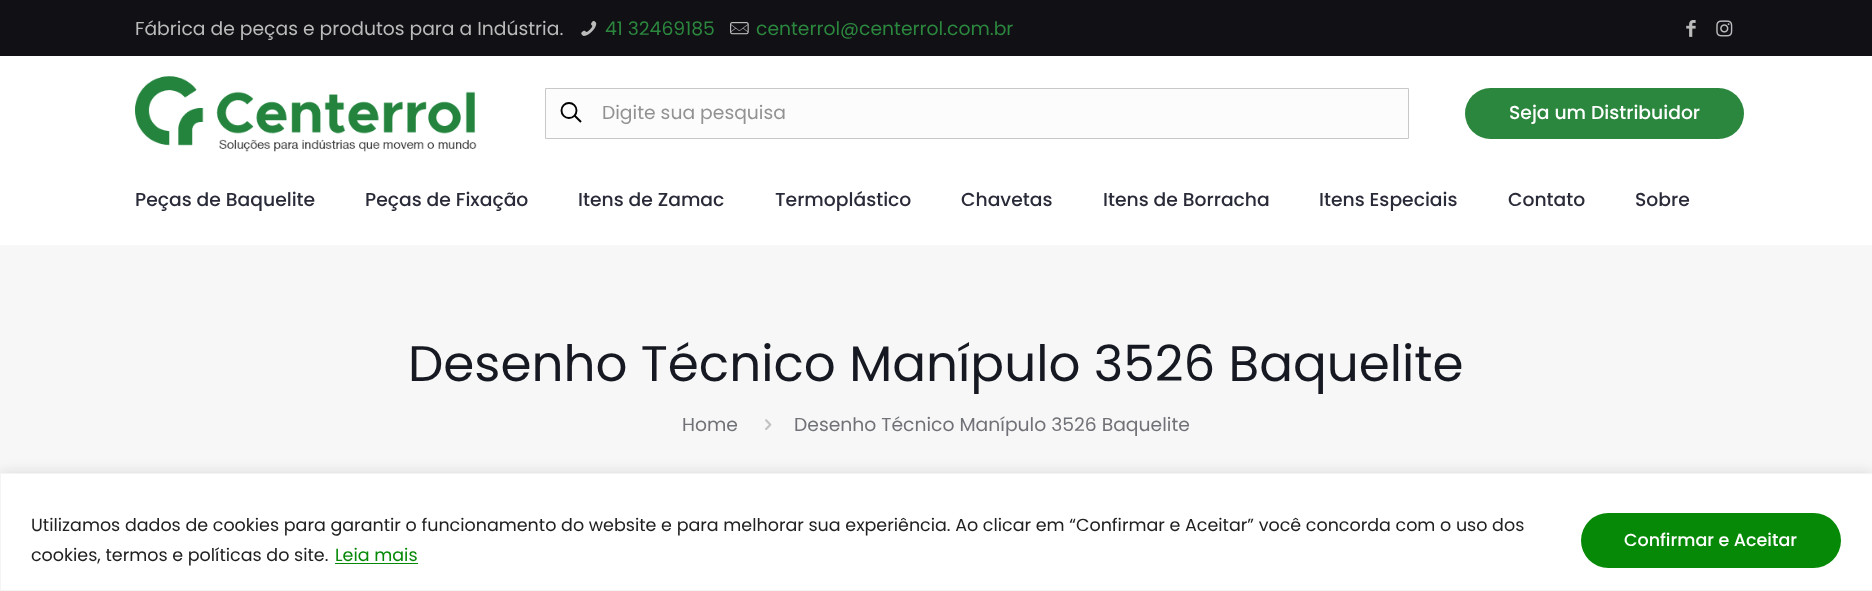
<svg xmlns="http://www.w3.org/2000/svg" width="1872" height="591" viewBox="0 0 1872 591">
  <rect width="100%" height="100%" fill="#f7f7f7"/>
  <path d="M0 0h1872v56H0z" fill="#101015"/>
  <image x="581" y="20" width="16" height="16" href="img/1.png"/>
  <image x="730" y="22" width="19" height="13" href="img/2.png"/>
  <image x="1686" y="20" width="10" height="17" href="img/3.png"/>
  <image x="1716" y="20" width="17" height="17" href="img/4.png"/>
  <path d="M0 56h1872v189H0z" fill="#fff"/>
  <image x="135" y="76" width="342" height="76" href="img/5.png"/>
  <path d="M545.5 88.5h863v50H545.5z" fill="#fcfcfc" stroke="#c8c8c8"/>
  <circle cx="569" cy="110.5" r="7.5" fill="none" stroke="#000" stroke-width="1.9"/>
  <path d="M574.5 115.5L581 122" fill="none" stroke="#000" stroke-width="1.9"/>
  <rect x="1465" y="88" width="279" height="51" rx="25.5" fill="#2c873e"/>
  <image x="765" y="419" width="7" height="11" href="img/6.png"/>
  <path d="M0 471h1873v119H0z" fill="#acabab4d" filter="blur(6px)"/>
  <path d="M0.5 473.5h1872v117H0.5z" fill="#fff" stroke="#f4f4f4"/>
  <path d="M335 563h83v1H335z" fill="#068906"/>
  <rect x="1581" y="513" width="260" height="55" rx="27.5" fill="#068906"/>
  <text x="135" y="35" font-family="Poppins" font-size="18.75" fill="#bbb">Fábrica de peças e produtos para a Indústria.</text>
  <g font-family="Poppins" font-size="18.75" fill="#2c873e">
    <text x="605" y="35">41 32469185</text>
    <text x="756" y="35">centerrol@centerrol.com.br</text>
  </g>
  <text x="602" y="119" font-family="Poppins" font-size="18.75" fill="#929292">Digite sua pesquisa</text>
  <text x="1509" y="119" font-family="Poppins" font-size="18.75" font-weight="500" fill="#fff">Seja um Distribuidor</text>
  <g font-family="Poppins" font-size="18.75" font-weight="500" fill="#2a2b39">
    <text x="135" y="206">Peças de Baquelite</text>
    <text x="365" y="206">Peças de Fixação</text>
    <text x="578" y="206">Itens de Zamac</text>
    <text x="775" y="206">Termoplástico</text>
    <text x="961" y="206">Chavetas</text>
    <text x="1103" y="206">Itens de Borracha</text>
    <text x="1319" y="206">Itens Especiais</text>
    <text x="1508" y="206">Contato</text>
    <text x="1635" y="206">Sobre</text>
  </g>
  <text x="408" y="381" font-family="Poppins" font-size="50" fill="#161922">Desenho Técnico Manípulo 3526 Baquelite</text>
  <g font-family="Poppins" font-size="18.75" fill="#707277">
    <text x="682" y="431">Home</text>
    <text x="794" y="431">Desenho Técnico Manípulo 3526 Baquelite</text>
  </g>
  <g font-family="Poppins" font-size="17.5" fill="#212121">
    <text x="31" y="531">Utilizamos dados de cookies para garantir o funcionamento do website e para melhorar sua experiência. Ao clicar em “Confirmar e Aceitar” você concorda com o uso dos</text>
    <text x="31" y="561">cookies, termos e políticas do site.</text>
  </g>
  <text x="335" y="561" font-family="Poppins" font-size="17.5" fill="#068906">Leia mais</text>
  <text x="1624" y="546" font-family="Poppins" font-size="17.5" font-weight="500" fill="#fff">Confirmar e Aceitar</text>
</svg>
